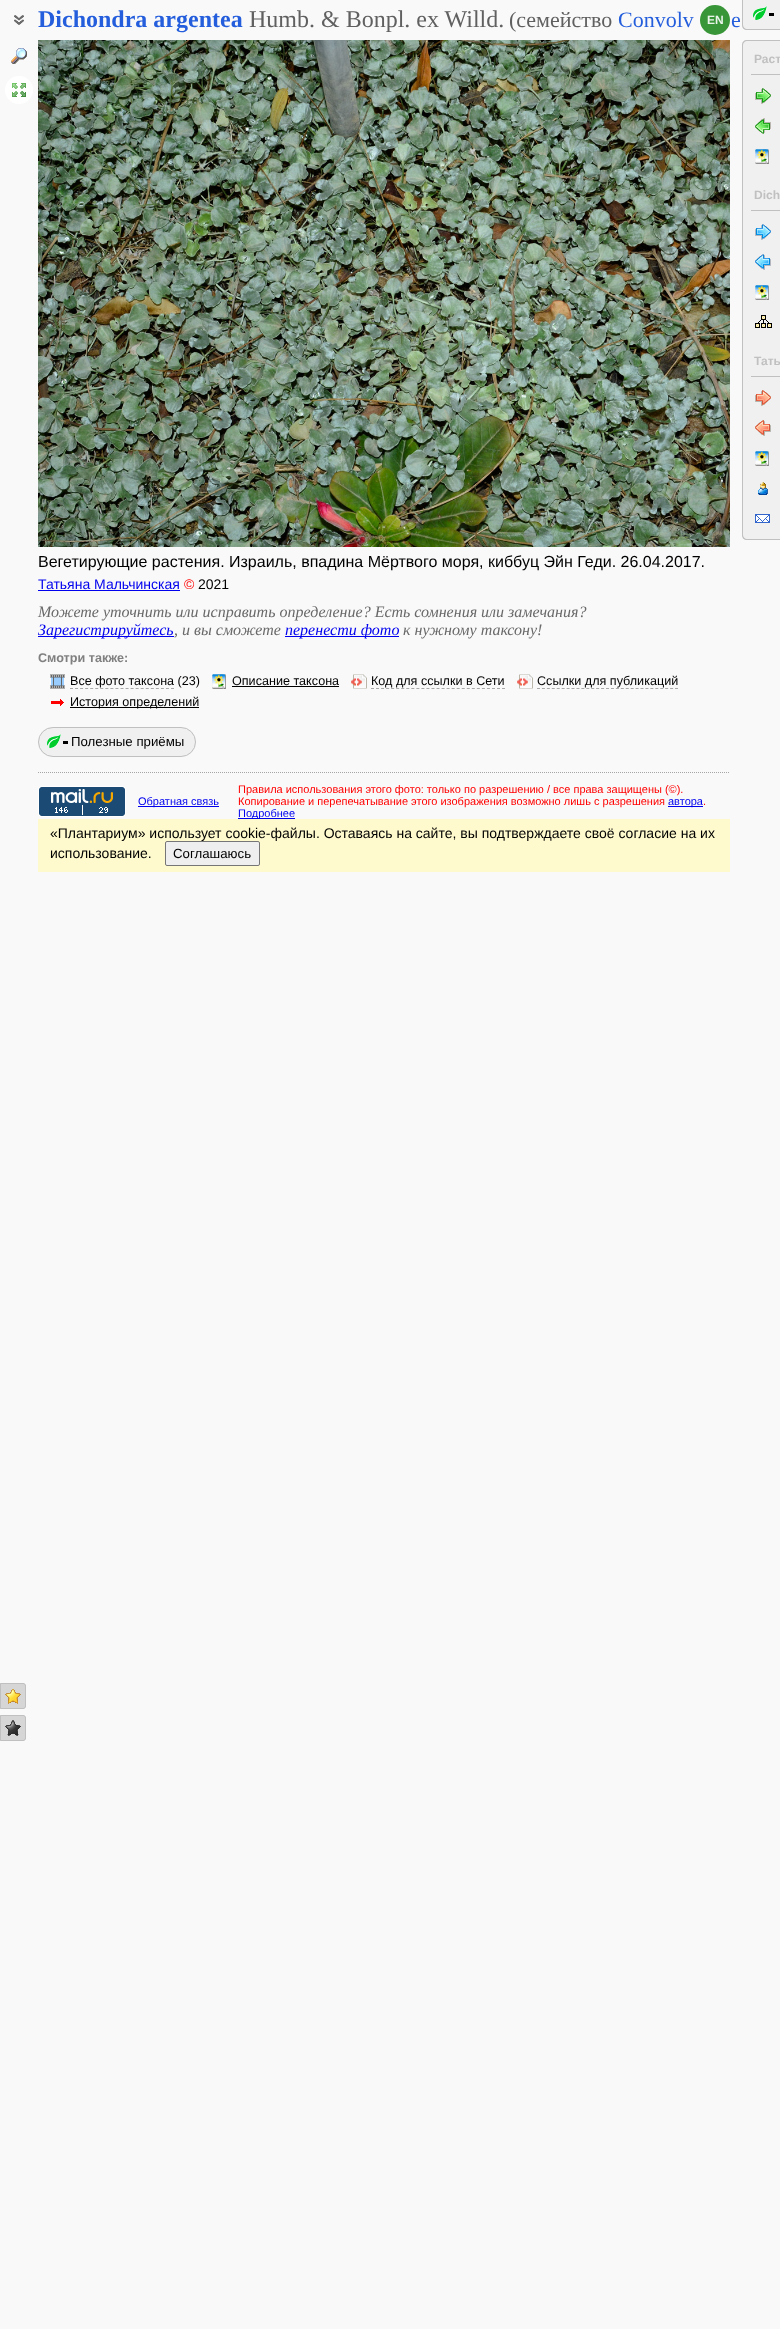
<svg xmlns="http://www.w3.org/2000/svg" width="780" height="2329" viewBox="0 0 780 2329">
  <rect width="100%" height="100%" fill="#f9f9f9"/>
  <image x="14" y="15" width="10" height="10" href="img/1.png"/>
  <circle cx="715" cy="20" r="15" fill="#228b22e6"/>
  <image x="11" y="48" width="16" height="16" href="img/2.png"/>
  <circle cx="19" cy="90" r="14" fill="#fff"/>
  <image x="12" y="83" width="14" height="14" href="img/3.png"/>
  <path d="M0 1683H23C24.5 1683 26 1684.5 26 1686V1706C26 1707.5 24.5 1709 23 1709H0Z" fill="#d6d6d6"/>
  <image x="5" y="1689" width="16" height="15" href="img/4.png"/>
  <path d="M.5 1683.5H23C24.5 1683.5 25.5 1684.5 25.5 1686V1706C25.5 1707.5 24.5 1708.5 23 1708.5H.5Z" fill="none" stroke="#c0c0c0"/>
  <path d="M0 1715H23C24.5 1715 26 1716.5 26 1718V1738C26 1739.5 24.5 1741 23 1741H0Z" fill="#d6d6d6"/>
  <image x="5" y="1720" width="16" height="16" href="img/5.png"/>
  <path d="M.5 1715.5H23C24.5 1715.5 25.5 1716.5 25.5 1718V1738C25.5 1739.5 24.5 1740.5 23 1740.5H.5Z" fill="none" stroke="#c0c0c0"/>
  <path d="M742 0H780V30H747C744 30 742 28 742 25Z" fill="#f0f0f0"/>
  <image x="753" y="6" width="14" height="14" href="img/6.png"/>
  <path d="M742 0H780V30H747C744 30 742 28 742 25ZM743 0H780V29H747C745 29 743 27 743 25Z" fill="#c0c0c0" fill-rule="evenodd"/>
  <path d="M769 13h5v3H769z" fill="#000"/>
  <path d="M747 40H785V540H747C744 540 742 538 742 535V45C742 42 744 40 747 40Z" fill="#f0f0f0"/>
  <path d="M747 40H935V540H747C744 540 742 538 742 535V45C742 42 744 40 747 40ZM747 41H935V539H747C745 539 743 537 743 535V45C743 43 745 41 747 41Z" fill="#c0c0c0" fill-rule="evenodd"/>
  <path d="M751 74h29v1H751z" fill="#c0c0c0"/>
  <image x="755" y="88" width="16" height="16" href="img/7.png"/>
  <image x="755" y="118" width="16" height="16" href="img/8.png"/>
  <image x="755" y="149" width="14" height="15" href="img/9.png"/>
  <path d="M751 210h29v1H751z" fill="#c0c0c0"/>
  <image x="755" y="224" width="16" height="16" href="img/10.png"/>
  <image x="755" y="254" width="16" height="16" href="img/11.png"/>
  <image x="755" y="285" width="14" height="15" href="img/9.png"/>
  <image x="755" y="315" width="17" height="13" href="img/12.png"/>
  <path d="M751 376h29v1H751z" fill="#c0c0c0"/>
  <image x="755" y="390" width="16" height="16" href="img/13.png"/>
  <image x="755" y="420" width="16" height="16" href="img/14.png"/>
  <image x="755" y="451" width="14" height="15" href="img/9.png"/>
  <image x="758" y="482" width="10" height="13" href="img/15.png"/>
  <image x="755" y="514" width="15" height="9" href="img/16.png"/>
  <image x="38" y="40" width="692" height="507" href="img/17.png"/>
  <path d="M38 590h142v1H38z" fill="#00e"/>
  <path d="M38 636h136v1H38z" fill="#00e"/>
  <path d="M285 636h114v1H285z" fill="#00e"/>
  <image x="50" y="674" width="15" height="15" href="img/18.png"/>
  <path d="M70 688.5H174" fill="none" stroke="#a9a9a9" stroke-dasharray="3 2.05"/>
  <image x="212" y="674" width="14" height="15" href="img/9.png"/>
  <path d="M232 686h107v1H232z" fill="#000"/>
  <image x="351" y="674" width="16" height="15" href="img/19.png"/>
  <path d="M371 688.5H505" fill="none" stroke="#a9a9a9" stroke-dasharray="3 2.04"/>
  <image x="517" y="674" width="16" height="15" href="img/19.png"/>
  <path d="M537 688.5H678" fill="none" stroke="#a9a9a9" stroke-dasharray="3 1.93"/>
  <image x="51" y="699" width="13" height="7" href="img/20.png"/>
  <path d="M70 707h129v1H70z" fill="#000"/>
  <rect x="38" y="727" width="158" height="30" rx="15" fill="#f0f0f0"/>
  <path d="M63 741h5v3H63z" fill="#000"/>
  <rect x="38.5" y="727.5" width="157" height="29" rx="14.5" fill="none" stroke="#c0c0c0"/>
  <image x="47" y="734" width="14" height="14" href="img/6.png"/>
  <path d="M38 772.5H730" fill="none" stroke="#a6a6a6" stroke-dasharray="1 1"/>
  <image x="38" y="786" width="88" height="31" href="img/21.png"/>
  <path d="M138 806h81v1H138z" fill="#00e"/>
  <path d="M668 806h35v1H668z" fill="#00e"/>
  <path d="M238 818h57v1H238z" fill="#00e"/>
  <text x="38" y="27" font-family="Liberation Serif" font-size="24" font-weight="bold" fill="#245edc">Dichondra argentea</text>
  <text x="249" y="27" font-family="Liberation Serif" font-size="24" fill="#606060">Humb. &amp; Bonpl. ex Willd.</text>
  <text x="509" y="27" font-family="Liberation Serif" font-size="22" fill="#606060">(семейство</text>
  <g font-family="Liberation Serif" font-size="22" fill="#245edc">
    <text x="618" y="27">Convolv</text>
    <text x="731" y="27">e</text>
  </g>
  <text x="707" y="24" font-family="Liberation Sans" font-size="12" font-weight="bold" fill="#eaf4eb">EN</text>
  <g font-family="Liberation Sans" font-size="12" font-weight="bold" fill="#c0c0c0">
    <text x="754" y="63">Раст</text>
    <text x="754" y="199">Dich</text>
    <text x="754" y="365">Тать</text>
  </g>
  <text x="38" y="567" font-family="Liberation Sans" font-size="16" fill="#000">Вегетирующие растения. Израиль, впадина Мёртвого моря, киббуц Эйн Геди. 26.04.2017.</text>
  <text x="38" y="589" font-family="Liberation Sans" font-size="14" fill="#00e">Татьяна Мальчинская</text>
  <text x="184" y="589" font-family="Liberation Sans" font-size="14" fill="#f00">©</text>
  <text x="198" y="589" font-family="Liberation Sans" font-size="14" fill="#000">2021</text>
  <text x="38" y="617" font-family="Liberation Serif" font-size="16" font-style="italic" fill="#696969">Можете уточнить или исправить определение? Есть сомнения или замечания?</text>
  <text x="38" y="635" font-family="Liberation Serif" font-size="16" font-style="italic" fill="#00e">Зарегистрируйтесь</text>
  <text x="174" y="635" font-family="Liberation Serif" font-size="16" font-style="italic" fill="#696969">, и вы сможете</text>
  <text x="285" y="635" font-family="Liberation Serif" font-size="16" font-style="italic" fill="#00e">перенести фото</text>
  <text x="403" y="635" font-family="Liberation Serif" font-size="16" font-style="italic" fill="#696969">к нужному таксону!</text>
  <text x="38" y="662" font-family="Liberation Sans" font-size="12.6" font-weight="bold" fill="#808080">Смотри также:</text>
  <g font-family="Liberation Sans" font-size="12.6" fill="#000">
    <text x="70" y="685">Все фото таксона (23)</text>
    <text x="232" y="685">Описание таксона</text>
    <text x="371" y="685">Код для ссылки в Сети</text>
    <text x="537" y="685">Ссылки для публикаций</text>
    <text x="70" y="706">История определений</text>
  </g>
  <text x="71" y="746" font-family="Liberation Sans" font-size="13.25" fill="#000">Полезные приёмы</text>
  <text x="138" y="805" font-family="Liberation Sans" font-size="11" fill="#00e">Обратная связь</text>
  <g font-family="Liberation Sans" font-size="11" fill="#f00">
    <text x="238" y="793">Правила использования этого фото: только по разрешению / все права защищены (©).</text>
    <text x="238" y="805">Копирование и перепечатывание этого изображения возможно лишь с разрешения</text>
  </g>
  <text x="668" y="805" font-family="Liberation Sans" font-size="11" fill="#00e">автора</text>
  <text x="703" y="805" font-family="Liberation Sans" font-size="11" fill="#f00">.</text>
  <text x="238" y="817" font-family="Liberation Sans" font-size="11" fill="#00e">Подробнее</text>
  <path d="M38 819h692v53H38z" fill="#fffacd"/>
  <g font-family="Liberation Sans" font-size="14" fill="#000">
    <text x="50" y="838">«Плантариум» использует cookie-файлы. Оставаясь на сайте, вы подтверждаете своё согласие на их</text>
    <text x="50" y="858">использование.</text>
  </g>
  <rect x="165.5" y="841.5" width="94" height="24" rx="1.5" fill="#efefef" stroke="#767676"/>
  <text x="173" y="858" font-family="Liberation Sans" font-size="13.25" fill="#000">Соглашаюсь</text>
</svg>
